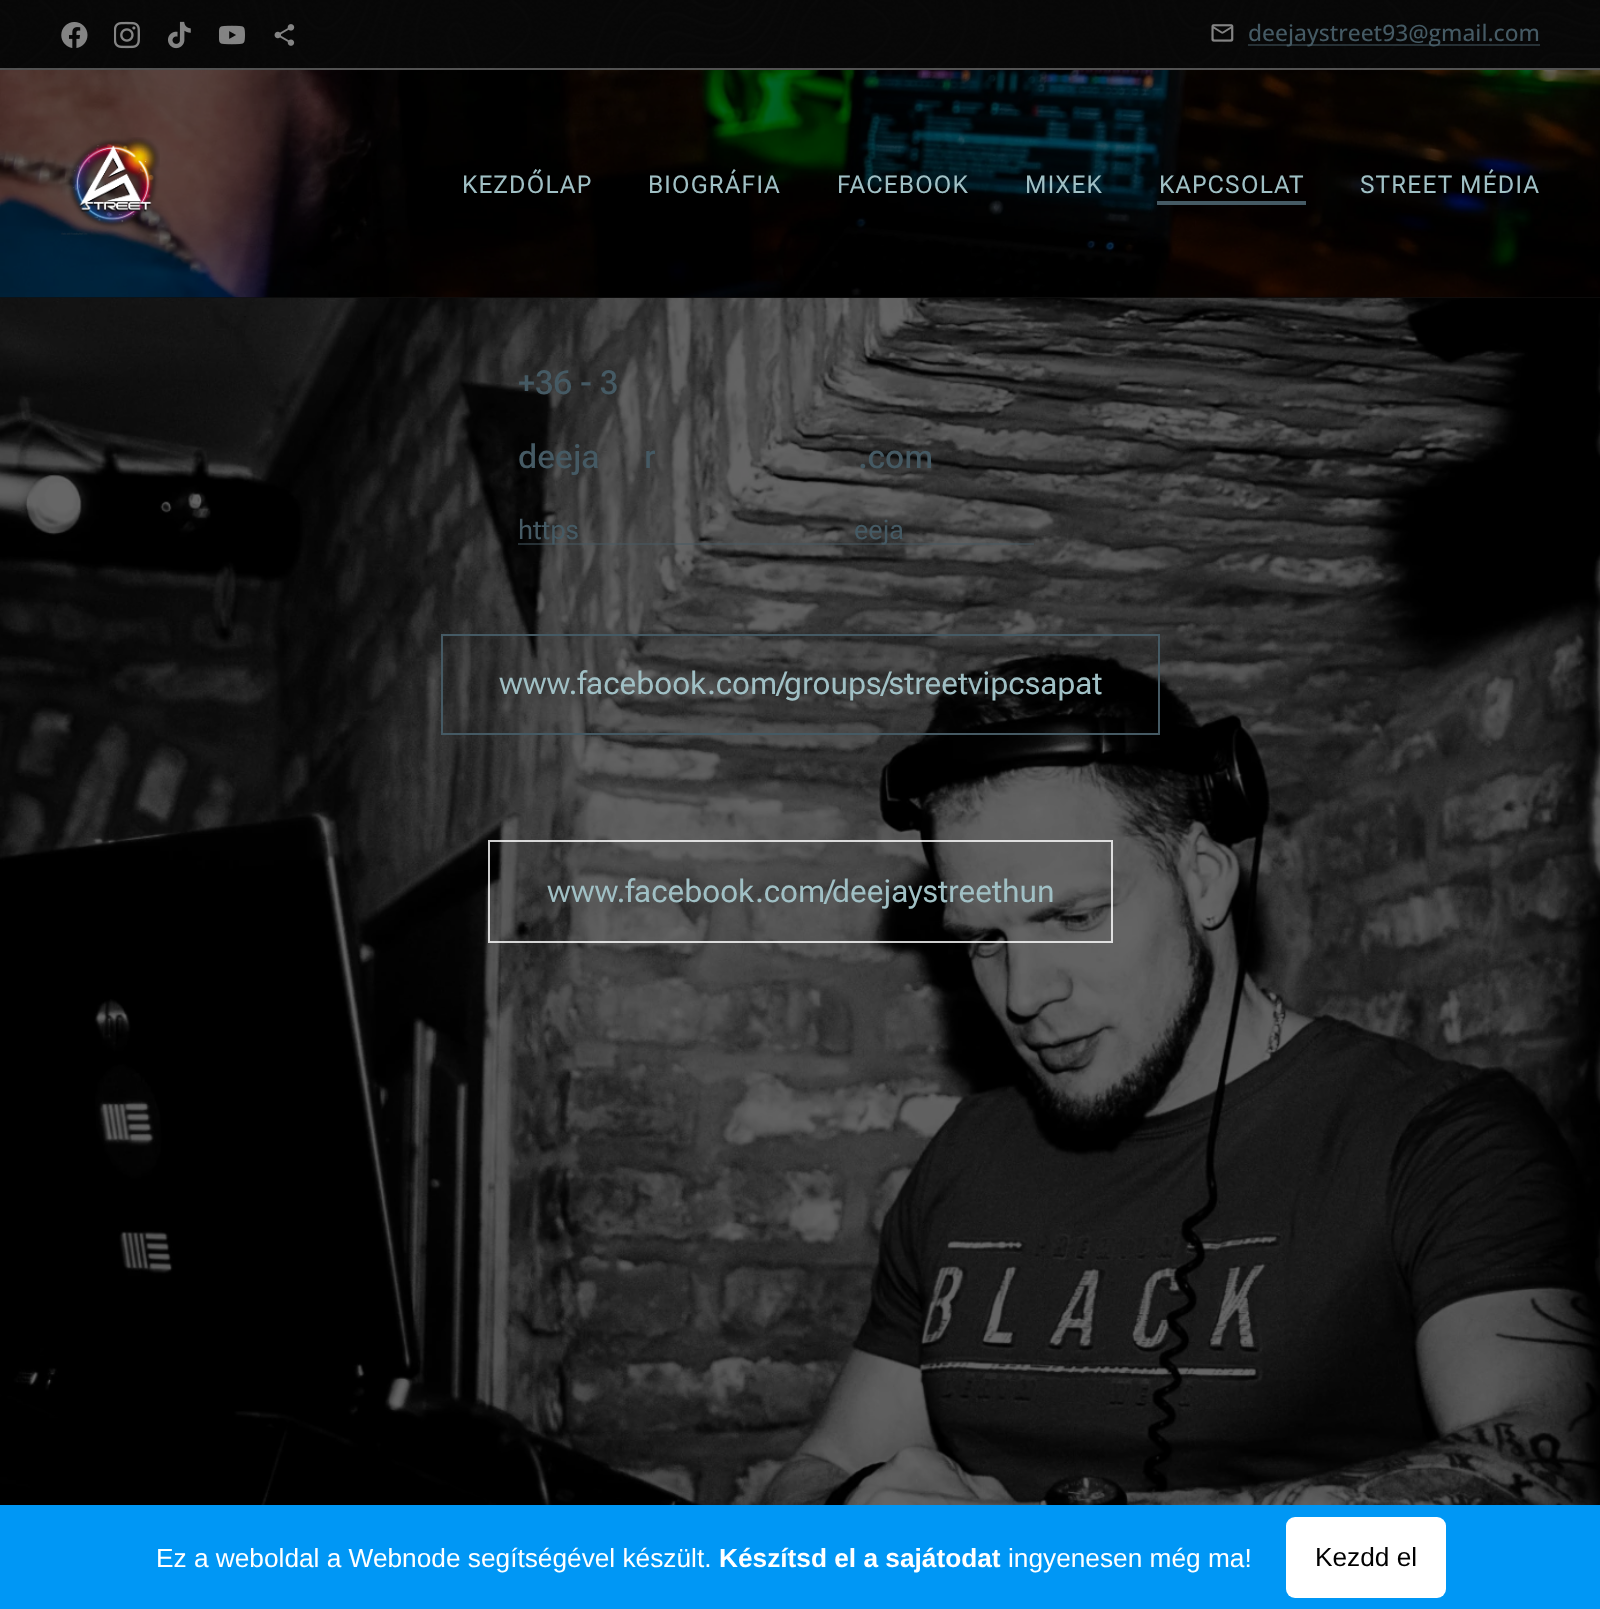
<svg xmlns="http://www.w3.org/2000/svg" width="1600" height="1609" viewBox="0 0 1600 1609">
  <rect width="100%" height="100%" fill="#fff"/>
  <image x="0" y="0" width="1600" height="70" href="img/1.png"/>
  <image x="61" y="22" width="27" height="26" href="img/2.png"/>
  <image x="114" y="21" width="26" height="28" href="img/3.png"/>
  <image x="168" y="21" width="23" height="28" href="img/4.png"/>
  <image x="219" y="25" width="26" height="20" href="img/5.png"/>
  <image x="274" y="24" width="21" height="22" href="img/6.png"/>
  <image x="1211" y="24" width="23" height="18" href="img/7.png"/>
  <path d="M1248 44h292v2H1248z" fill="#455a6480"/>
  <path d="M0 68h1600v2H0z" fill="#ffffff4d"/>
  <path d="M0 297h1600v1H0z" fill="#272727"/>
  <image x="0" y="70" width="1600" height="228" href="img/8.png"/>
  <path d="M0 70h1600v228H0z" fill="#00000099"/>
  <image x="61" y="137" width="99" height="98" href="img/9.png"/>
  <path d="M1157 201h149v4H1157z" fill="#455a64"/>
  <image x="0" y="298" width="1600" height="1207" href="img/10.png"/>
  <path d="M518 543h516v2H518z" fill="#455a6480"/>
  <path d="M442 635h717v99H442z" fill="none" stroke="#455a64" stroke-width="2"/>
  <path d="M489 841h623v101H489z" fill="none" stroke="#ffffffcc" stroke-width="2"/>
  <path d="M0 1505h1600v104H0z" fill="#0097f5"/>
  <rect x="1286" y="1517" width="160" height="81" rx="9" fill="#fff"/>
  <text x="1248" y="41" font-family="Open Sans" font-size="22.75" font-weight="500" fill="#455a64">deejaystreet93@gmail.com</text>
  <g font-family="Roboto Flex" font-size="24.5" letter-spacing="1.25" fill="#a0c0c5">
    <text x="462" y="193">KEZDŐLAP</text>
    <text x="648" y="193">BIOGRÁFIA</text>
    <text x="837" y="193">FACEBOOK</text>
    <text x="1025" y="193">MIXEK</text>
    <text x="1159" y="193">KAPCSOLAT</text>
    <text x="1360" y="193">STREET MÉDIA</text>
  </g>
  <g font-family="Roboto Flex" font-size="33" font-weight="500" fill="#455a64">
    <text x="518" y="394">+36 - 3</text>
    <text x="518" y="468">deeja</text>
    <text x="644" y="468">r</text>
    <text x="858" y="468">.com</text>
  </g>
  <g font-family="Roboto Flex" font-size="27" fill="#455a64">
    <text x="518" y="539">https</text>
    <text x="854" y="539">eeja</text>
  </g>
  <g font-family="Roboto Flex" font-size="31.5" fill="#a0c0c5">
    <text x="499" y="694">www.facebook.com/groups/streetvipcsapat</text>
    <text x="547" y="902">www.facebook.com/deejaystreethun</text>
  </g>
  <text x="156" y="1567" font-family="Liberation Sans" font-size="26.25" fill="#fff">Ez a weboldal a Webnode segítségével készült.</text>
  <text x="719" y="1567" font-family="Liberation Sans" font-size="26.25" font-weight="bold" fill="#fff">Készítsd el a sajátodat</text>
  <text x="1008" y="1567" font-family="Liberation Sans" font-size="26.25" fill="#fff">ingyenesen még ma!</text>
  <text x="1315" y="1566" font-family="Liberation Sans" font-size="26.25" fill="#000">Kezdd el</text>
</svg>
